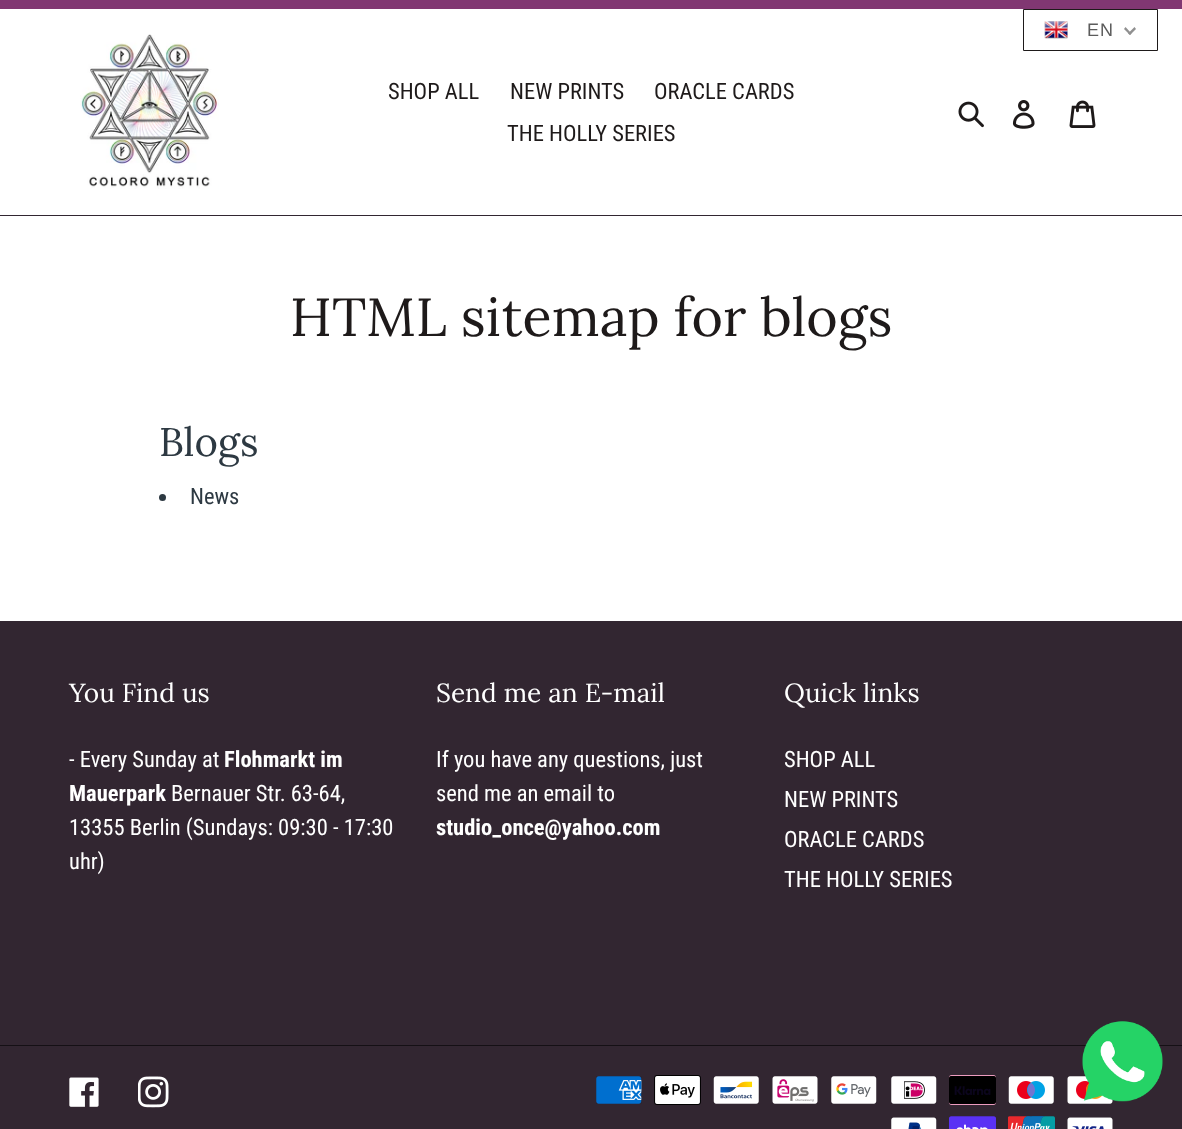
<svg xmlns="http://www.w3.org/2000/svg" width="1182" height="1129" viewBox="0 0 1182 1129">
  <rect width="100%" height="100%" fill="#fff"/>
  <path d="M1023.5 9.5h134v41H1023.5z" fill="none" stroke="#1e1a1a"/>
  <image x="1044" y="21" width="24" height="18" href="img/1.png"/>
  <path d="M1134.5 27L1136 29L1130 35L1128 33.5Z" fill="#909090"/>
  <path d="M1125.5 27L1131.5 33.5L1130 35L1124 29Z" fill="#909090"/>
  <path d="M0 0h1182v9H0z" fill="#813772"/>
  <path d="M0 215h1182v1H0z" fill="#322631"/>
  <image x="80" y="34" width="139" height="155" href="img/2.png"/>
  <image x="958" y="101" width="26" height="27" href="img/3.png"/>
  <image x="1012" y="100" width="23" height="29" href="img/4.png"/>
  <image x="1069" y="100" width="27" height="28" href="img/5.png"/>
  <circle cx="162.5" cy="497.5" r="3.5" fill="#2d3942"/>
  <path d="M0 621h1182v508H0z" fill="#322631"/>
  <path d="M0 1045h1182v1H0z" fill="#151015"/>
  <image x="69" y="1077" width="30" height="30" href="img/6.png"/>
  <image x="138" y="1076" width="31" height="32" href="img/7.png"/>
  <image x="596" y="1076" width="46" height="28" href="img/8.png"/>
  <image x="654" y="1075" width="47" height="30" href="img/9.png"/>
  <image x="713" y="1076" width="46" height="28" href="img/10.png"/>
  <image x="772" y="1076" width="46" height="28" href="img/11.png"/>
  <image x="831" y="1076" width="46" height="28" href="img/12.png"/>
  <image x="891" y="1076" width="46" height="28" href="img/13.png"/>
  <image x="949" y="1075" width="47" height="30" href="img/14.png"/>
  <image x="1008" y="1076" width="46" height="28" href="img/15.png"/>
  <image x="1067" y="1076" width="46" height="28" href="img/16.png"/>
  <image x="891" y="1117" width="46" height="12" href="img/17.png"/>
  <image x="949" y="1116" width="47" height="13" href="img/18.png"/>
  <image x="1008" y="1116" width="47" height="13" href="img/19.png"/>
  <image x="1067" y="1117" width="46" height="12" href="img/20.png"/>
  <image x="1082" y="1021" width="81" height="81" href="img/21.png"/>
  <text x="1087" y="36" font-family="Liberation Sans" font-size="18" letter-spacing="1" fill="#5c5c5c">EN</text>
  <g font-family="Roboto Condensed" font-size="22.5" fill="#1e1a1a">
    <text x="388" y="99">SHOP ALL</text>
    <text x="510" y="99">NEW PRINTS</text>
    <text x="654" y="99">ORACLE CARDS</text>
    <text x="507" y="141">THE HOLLY SERIES</text>
  </g>
  <text x="290" y="336" font-family="Lora" font-size="53.75" fill="#1e1a1a">HTML sitemap for blogs</text>
  <text x="159" y="456" font-family="Lora" font-size="40" fill="#2d3942">Blogs</text>
  <text x="190" y="504" font-family="Roboto Condensed" font-size="22.5" fill="#2d3942">News</text>
  <text x="69" y="702" font-family="Lora" font-size="26.25" fill="#fff">You Find us</text>
  <text x="69" y="767" font-family="Roboto Condensed" font-size="22.5" fill="#fff">- Every Sunday at</text>
  <g font-family="Roboto Condensed" font-size="22.5" font-weight="bold" fill="#fff">
    <text x="224" y="767">Flohmarkt im</text>
    <text x="69" y="801">Mauerpark</text>
  </g>
  <g font-family="Roboto Condensed" font-size="22.5" fill="#fff">
    <text x="171" y="801">Bernauer Str. 63-64,</text>
    <text x="69" y="835">13355 Berlin (Sundays: 09:30 - 17:30</text>
    <text x="69" y="869">uhr)</text>
  </g>
  <text x="436" y="702" font-family="Lora" font-size="26.25" fill="#fff">Send me an E-mail</text>
  <g font-family="Roboto Condensed" font-size="22.5" fill="#fff">
    <text x="436" y="767">If you have any questions, just</text>
    <text x="436" y="801">send me an email to</text>
  </g>
  <text x="436" y="835" font-family="Roboto Condensed" font-size="22.5" font-weight="bold" fill="#fff">studio_once@yahoo.com</text>
  <text x="784" y="702" font-family="Lora" font-size="26.25" fill="#fff">Quick links</text>
  <g font-family="Roboto Condensed" font-size="22.5" fill="#fff">
    <text x="784" y="767">SHOP ALL</text>
    <text x="784" y="807">NEW PRINTS</text>
    <text x="784" y="847">ORACLE CARDS</text>
    <text x="784" y="887">THE HOLLY SERIES</text>
  </g>
</svg>
